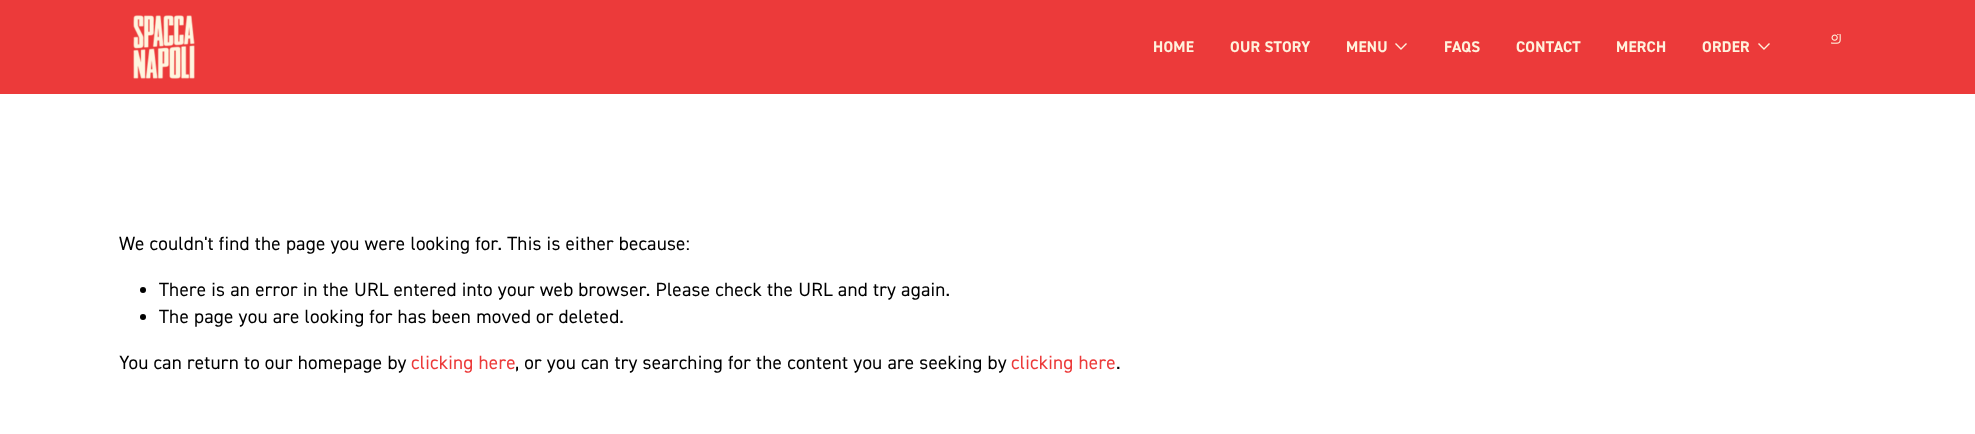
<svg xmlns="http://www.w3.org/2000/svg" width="1975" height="434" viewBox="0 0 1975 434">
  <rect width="100%" height="100%" fill="#fff"/>
  <path d="M0 0h1975v94H0z" fill="#ec3a3a"/>
  <image x="1831" y="34" width="10" height="10" href="img/1.png"/>
  <image x="133" y="15" width="62" height="64" href="img/2.png"/>
  <path d="M1406 44L1401 49L1396 44" fill="none" stroke="#fff2dd" stroke-width="1.4" stroke-linecap="square"/>
  <path d="M1769 44L1764 49L1759 44" fill="none" stroke="#fff2dd" stroke-width="1.4" stroke-linecap="square"/>
  <circle cx="143" cy="290" r="3" fill="#000"/>
  <circle cx="143" cy="317" r="3" fill="#000"/>
  <g font-family="'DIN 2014'" font-size="15.5" font-weight="bold" letter-spacing="0.25" fill="#fff2dd">
    <text x="1153" y="52">HOME</text>
    <text x="1230" y="52">OUR STORY</text>
    <text x="1346" y="52">MENU</text>
    <text x="1444" y="52">FAQS</text>
    <text x="1516" y="52">CONTACT</text>
    <text x="1616" y="52">MERCH</text>
    <text x="1702" y="52">ORDER</text>
  </g>
  <g font-family="'DIN 2014'" font-size="19.2" letter-spacing="0.2" fill="#000">
    <text x="119" y="250">We couldn't find the page you were looking for. This is either because:</text>
    <text x="159" y="296">There is an error in the URL entered into your web browser. Please check the URL and try again.</text>
    <text x="159" y="323">The page you are looking for has been moved or deleted.</text>
    <text x="119" y="369">You can return to our homepage by</text>
  </g>
  <text x="411" y="369" font-family="'DIN 2014'" font-size="19.2" letter-spacing="0.2" fill="#ec3a3a">clicking here</text>
  <text x="515" y="369" font-family="'DIN 2014'" font-size="19.2" letter-spacing="0.2" fill="#000">, or you can try searching for the content you are seeking by</text>
  <text x="1011" y="369" font-family="'DIN 2014'" font-size="19.2" letter-spacing="0.2" fill="#ec3a3a">clicking here</text>
  <text x="1116" y="369" font-family="'DIN 2014'" font-size="19.2" letter-spacing="0.2" fill="#000">.</text>
</svg>
